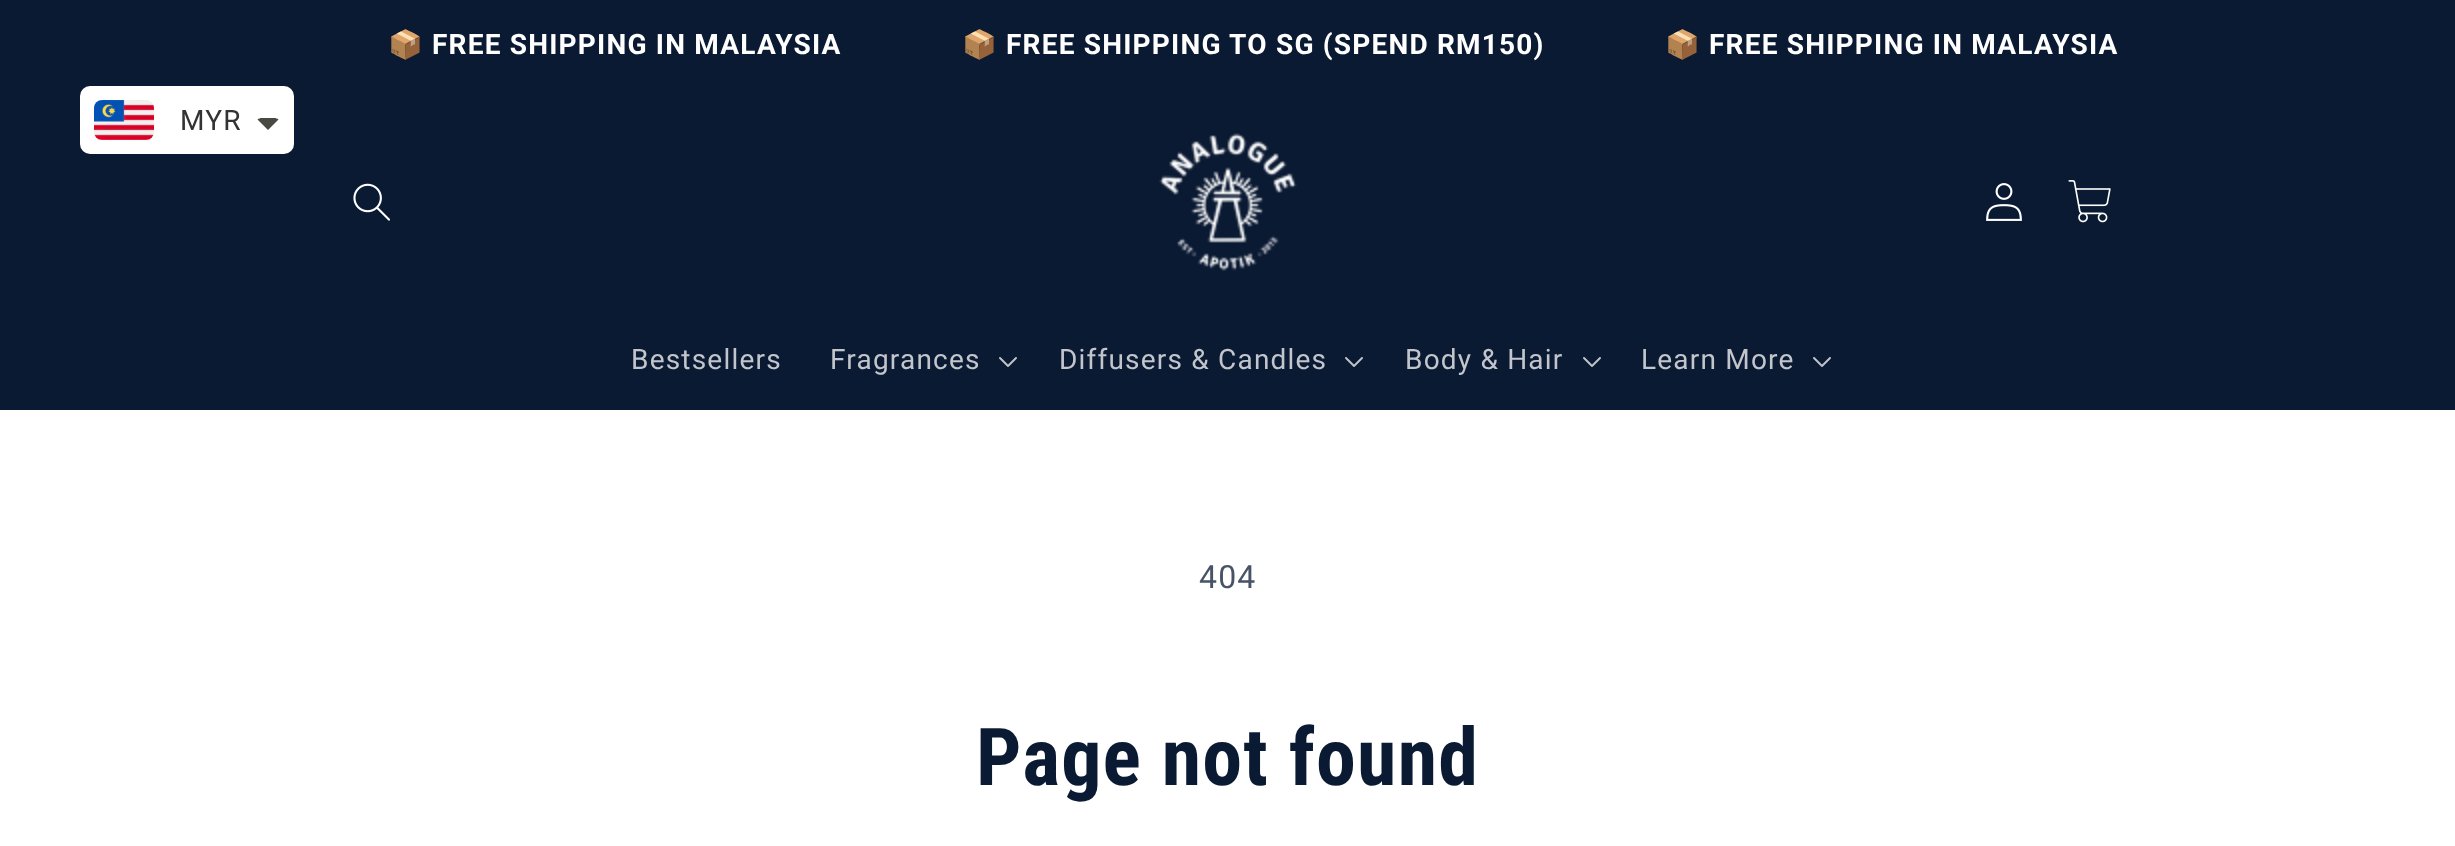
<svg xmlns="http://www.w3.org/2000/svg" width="2455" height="846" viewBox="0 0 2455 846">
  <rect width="100%" height="100%" fill="#fff"/>
  <path d="M0 0h2455v410H0z" fill="#0b1a33"/>
  <rect x="80" y="86" width="214" height="68" rx="10" fill="#fff"/>
  <image x="94" y="100" width="60" height="40" href="img/1.png"/>
  <path d="M262 118C260 118 259 118.5 257.5 119.5L268 130L278.5 119.5C277 118.5 276 118 274 118Z" fill="#474942"/>
  <image x="353" y="183" width="37" height="38" href="img/2.png"/>
  <image x="1159" y="133" width="138" height="138" href="img/3.png"/>
  <image x="1986" y="183" width="36" height="38" href="img/4.png"/>
  <image x="2068" y="180" width="43" height="43" href="img/5.png"/>
  <image x="999" y="357" width="18" height="10" href="img/6.png"/>
  <image x="1345" y="357" width="18" height="10" href="img/6.png"/>
  <image x="1583" y="357" width="18" height="10" href="img/6.png"/>
  <image x="1813" y="357" width="18" height="10" href="img/6.png"/>
  <text x="388" y="54" font-family="Noto Color Emoji" font-size="28" font-weight="bold" letter-spacing="1.2" fill="#fff">📦</text>
  <text x="432" y="54" font-family="Roboto" font-size="28" font-weight="bold" letter-spacing="1.2" fill="#fff">FREE SHIPPING IN MALAYSIA</text>
  <text x="962" y="54" font-family="Noto Color Emoji" font-size="28" font-weight="bold" letter-spacing="1.2" fill="#fff">📦</text>
  <text x="1006" y="54" font-family="Roboto" font-size="28" font-weight="bold" letter-spacing="1.2" fill="#fff">FREE SHIPPING TO SG (SPEND RM150)</text>
  <text x="1665" y="54" font-family="Noto Color Emoji" font-size="28" font-weight="bold" letter-spacing="1.2" fill="#fff">📦</text>
  <text x="1709" y="54" font-family="Roboto" font-size="28" font-weight="bold" letter-spacing="1.2" fill="#fff">FREE SHIPPING IN MALAYSIA</text>
  <text x="180" y="130" font-family="Roboto" font-size="28" letter-spacing="1.2" fill="#333">MYR</text>
  <g font-family="Roboto" font-size="28" letter-spacing="1.2" fill="#c2c6cc">
    <text x="631" y="369">Bestsellers</text>
    <text x="830" y="369">Fragrances</text>
    <text x="1059" y="369">Diffusers &amp; Candles</text>
    <text x="1405" y="369">Body &amp; Hair</text>
    <text x="1641" y="369">Learn More</text>
  </g>
  <text x="1199" y="588" font-family="Roboto" font-size="32" letter-spacing="1.2" fill="#485366">404</text>
  <text x="976" y="785" font-family="Roboto Condensed" font-size="80" font-weight="bold" letter-spacing="1.2" fill="#0b1a33">Page not found</text>
</svg>
